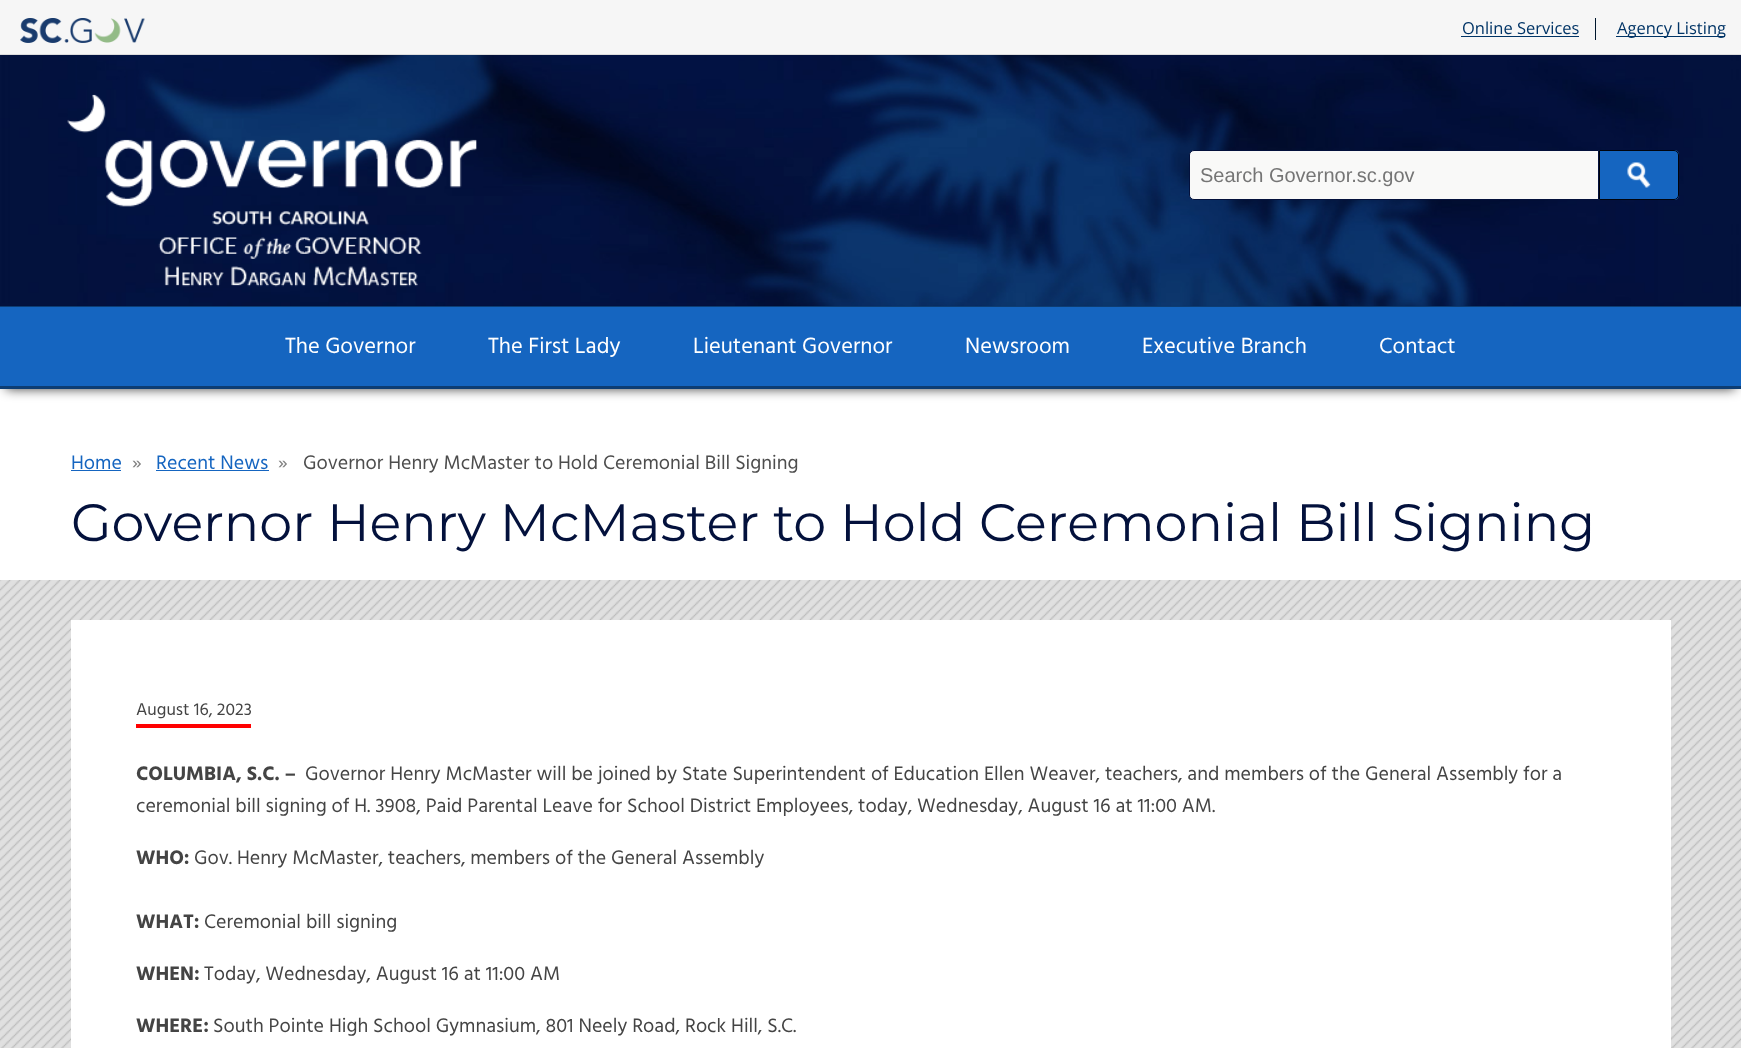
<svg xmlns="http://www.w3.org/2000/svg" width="1741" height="1048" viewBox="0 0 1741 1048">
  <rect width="100%" height="100%" fill="#fff"/>
  <image x="0" y="580" width="1741" height="468" href="img/1.png"/>
  <path d="M0 0h1741v54H0z" fill="#f6f6f6"/>
  <path d="M0 54h1741v1H0z" fill="#ddd"/>
  <image x="20" y="18" width="125" height="25" href="img/2.png"/>
  <path d="M1595 18h1v22H1595z" fill="#00172e"/>
  <path d="M1461 36h118v1H1461z" fill="#003466"/>
  <path d="M1616 36h109v1H1616z" fill="#003466"/>
  <image x="0" y="55" width="1741" height="251" href="img/3.png"/>
  <image x="67" y="94" width="410" height="193" href="img/4.png"/>
  <path d="M1194 150.5H1598.5V199.5H1194C1191.5 199.5 1189.5 197.5 1189.5 195V155C1189.5 152.5 1191.5 150.5 1194 150.5Z" fill="#f9f9f8" stroke="#03113c"/>
  <path d="M1599 150H1674C1677 150 1679 152 1679 155V195C1679 198 1677 200 1674 200H1599Z" fill="#1565c0"/>
  <image x="1627" y="162" width="24" height="26" href="img/5.png"/>
  <path d="M1599.5 150.5H1674C1676.5 150.5 1678.5 152.5 1678.5 155V195C1678.5 197.5 1676.5 199.5 1674 199.5H1599.5Z" fill="none" stroke="#01030b"/>
  <path d="M6 319h1729v70H6z" fill="#000000bf" filter="blur(6px)"/>
  <path d="M0 307h1741v79H0z" fill="#1565c0"/>
  <path d="M0 306h1741v1H0z" fill="#0d3d73"/>
  <path d="M0 386h1741v3H0z" fill="#0d3d73"/>
  <path d="M71 470h50v1H71z" fill="#1565c0"/>
  <path d="M156 470h113v1H156z" fill="#1565c0"/>
  <path d="M71 620h1600v428H71z" fill="#fff"/>
  <path d="M136 724h115v4H136z" fill="#f00"/>
  <g font-family="Open Sans" font-size="16.5" fill="#003466">
    <text x="1462" y="34">Online Services</text>
    <text x="1617" y="34">Agency Listing</text>
  </g>
  <text x="1200" y="182" font-family="Liberation Sans" font-size="20" fill="#757575">Search Governor.sc.gov</text>
  <g font-family="Hind" font-size="22.5" fill="#fff">
    <text x="285" y="353">The Governor</text>
    <text x="488" y="353">The First Lady</text>
    <text x="693" y="353">Lieutenant Governor</text>
    <text x="965" y="353">Newsroom</text>
    <text x="1142" y="353">Executive Branch</text>
    <text x="1379" y="353">Contact</text>
  </g>
  <text x="71" y="469" font-family="Hind" font-size="20" fill="#1565c0">Home</text>
  <text x="132" y="469" font-family="Hind" font-size="20" fill="#838383">»</text>
  <text x="156" y="469" font-family="Hind" font-size="20" fill="#1565c0">Recent News</text>
  <text x="278" y="469" font-family="Hind" font-size="20" fill="#838383">»</text>
  <text x="303" y="469" font-family="Hind" font-size="20" fill="#4d4d4d">Governor Henry McMaster to Hold Ceremonial Bill Signing</text>
  <text x="71" y="541" font-family="Montserrat" font-size="52.5" fill="#03113c">Governor Henry McMaster to Hold Ceremonial Bill Signing</text>
  <text x="136" y="715" font-family="Hind" font-size="17.5" fill="#444">August 16, 2023</text>
  <text x="136" y="780" font-family="Hind" font-size="20" font-weight="bold" fill="#444">COLUMBIA, S.C. –</text>
  <g font-family="Hind" font-size="20" fill="#444">
    <text x="305" y="780">Governor Henry McMaster will be joined by State Superintendent of Education Ellen Weaver, teachers, and members of the General Assembly for a</text>
    <text x="136" y="812">ceremonial bill signing of H. 3908, Paid Parental Leave for School District Employees, today, Wednesday, August 16 at 11:00 AM.</text>
  </g>
  <text x="136" y="864" font-family="Hind" font-size="20" font-weight="bold" fill="#444">WHO:</text>
  <text x="194" y="864" font-family="Hind" font-size="20" fill="#444">Gov. Henry McMaster, teachers, members of the General Assembly</text>
  <text x="136" y="928" font-family="Hind" font-size="20" font-weight="bold" fill="#444">WHAT:</text>
  <text x="204" y="928" font-family="Hind" font-size="20" fill="#444">Ceremonial bill signing</text>
  <text x="136" y="980" font-family="Hind" font-size="20" font-weight="bold" fill="#444">WHEN:</text>
  <text x="204" y="980" font-family="Hind" font-size="20" fill="#444">Today, Wednesday, August 16 at 11:00 AM</text>
  <text x="136" y="1032" font-family="Hind" font-size="20" font-weight="bold" fill="#444">WHERE:</text>
  <text x="213" y="1032" font-family="Hind" font-size="20" fill="#444">South Pointe High School Gymnasium, 801 Neely Road, Rock Hill, S.C.</text>
</svg>
